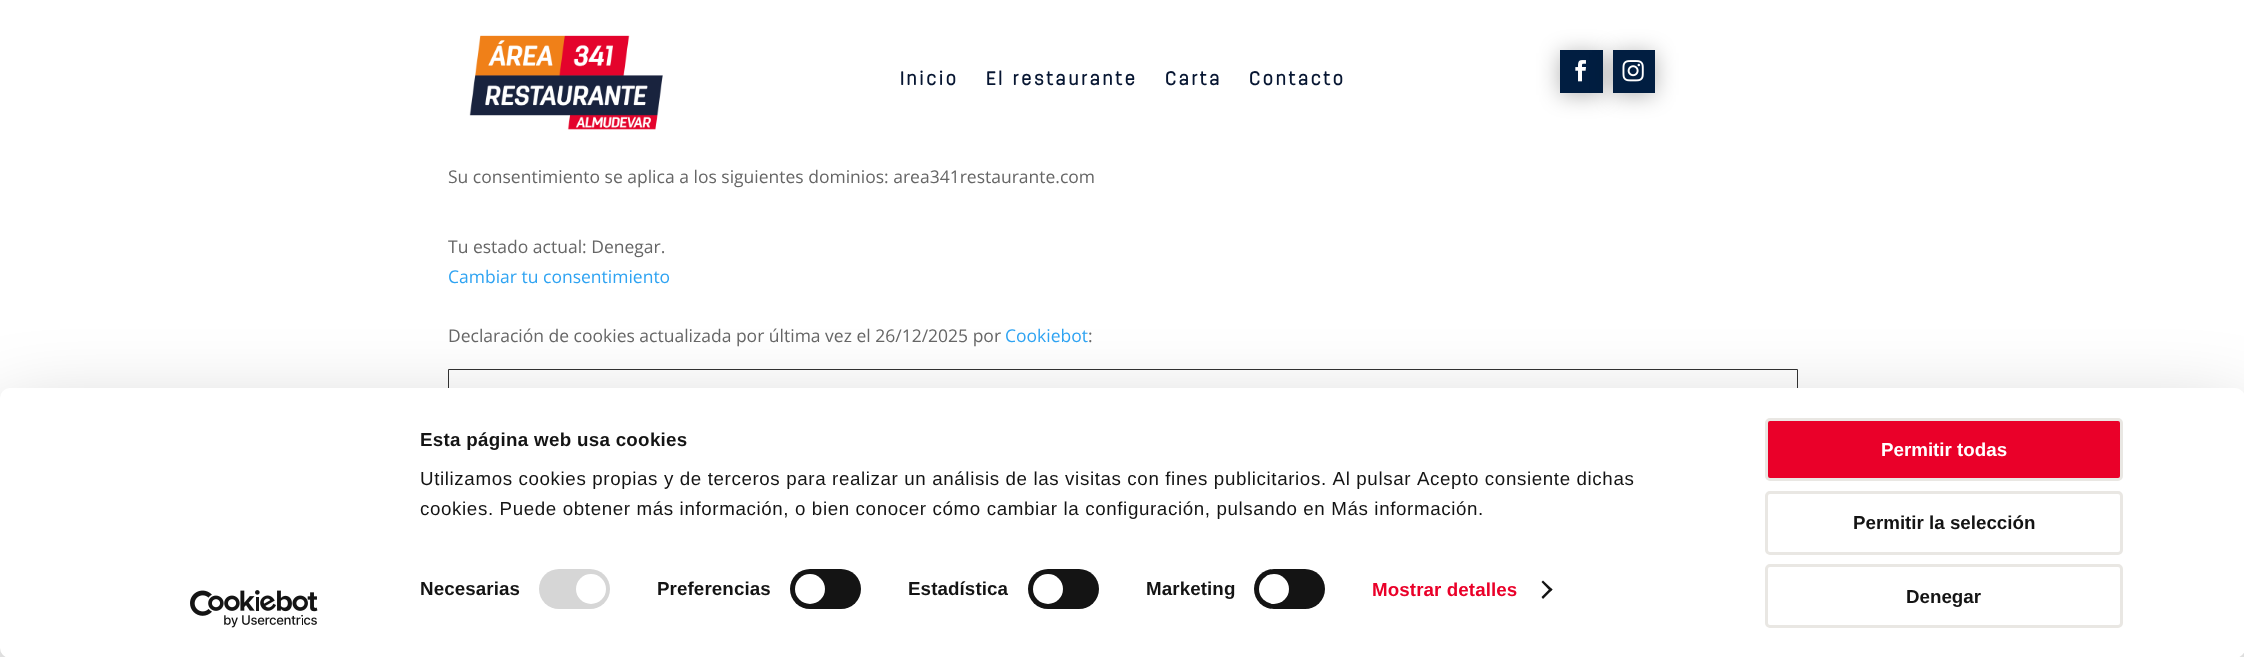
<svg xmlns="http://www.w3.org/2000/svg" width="2244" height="657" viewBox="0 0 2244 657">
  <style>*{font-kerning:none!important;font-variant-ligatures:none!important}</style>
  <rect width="100%" height="100%" fill="#fff"/>
  <image x="469" y="35" width="194" height="95" href="img/1.png"/>
  <path d="M1560 53h43v42H1560z" fill="#0000004d" filter="blur(11px)"/>
  <path d="M1560 50h43v43H1560z" fill="#011e41"/>
  <path d="M1613 53h42v42H1613z" fill="#0000004d" filter="blur(11px)"/>
  <image x="1575" y="60" width="11" height="22" href="img/2.png"/>
  <path d="M1613 50h42v43H1613z" fill="#011e41"/>
  <image x="1622" y="60" width="22" height="22" href="img/3.png"/>
  <path d="M448.5 369.5h1349v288H448.5z" fill="none" stroke="#333"/>
  <rect y="425" width="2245" height="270" rx="10" fill="#0000004d" filter="blur(44px)"/>
  <rect y="388" width="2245" height="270" rx="10" fill="#fff"/>
  <image x="190" y="590" width="128" height="38" href="img/4.png"/>
  <rect x="539" y="569" width="71" height="40" rx="20" fill="#d6d6d6"/>
  <circle cx="591" cy="589" r="15" fill="#fff"/>
  <rect x="790" y="569" width="71" height="40" rx="20" fill="#141414"/>
  <circle cx="810" cy="589" r="15" fill="#fff"/>
  <rect x="1028" y="569" width="71" height="40" rx="20" fill="#141414"/>
  <circle cx="1048" cy="589" r="15" fill="#fff"/>
  <rect x="1254" y="569" width="71" height="40" rx="20" fill="#141414"/>
  <circle cx="1274" cy="589" r="15" fill="#fff"/>
  <path d="M1543 580.5L1552.5 589.5L1550.5 591.5L1541.5 582Z" fill="#141414"/>
  <path d="M1550.5 588L1552.5 589.5L1543 599L1541.5 597Z" fill="#141414"/>
  <rect x="1766.5" y="419.5" width="355" height="60" rx="3.5" fill="#ea0029" stroke="#e9e7e3" stroke-width="3"/>
  <rect x="1766.5" y="492.5" width="355" height="61" rx="3.5" fill="none" stroke="#e9e7e3" stroke-width="3"/>
  <rect x="1766.5" y="565.5" width="355" height="61" rx="3.5" fill="none" stroke="#e9e7e3" stroke-width="3"/>
  <g font-family="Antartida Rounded" font-size="18.75" font-weight="bold" letter-spacing="2.5" fill="#071632">
    <text x="900" y="85">Inicio</text>
    <text x="986" y="85">El restaurante</text>
    <text x="1165" y="85">Carta</text>
    <text x="1249" y="85">Contacto</text>
  </g>
  <g font-family="Open Sans" font-size="17.5" fill="#666">
    <text x="448" y="183">Su consentimiento se aplica a los siguientes dominios: area341restaurante.com</text>
    <text x="448" y="253">Tu estado actual: Denegar.</text>
  </g>
  <text x="448" y="283" font-family="Open Sans" font-size="17.5" fill="#2ea3f2">Cambiar tu consentimiento</text>
  <text x="448" y="342" font-family="Open Sans" font-size="17.5" fill="#666">Declaración de cookies actualizada por última vez el 26/12/2025 por</text>
  <text x="1005" y="342" font-family="Open Sans" font-size="17.5" fill="#2ea3f2">Cookiebot</text>
  <text x="1088" y="342" font-family="Open Sans" font-size="17.5" fill="#666">:</text>
  <text x="420" y="446" font-family="Liberation Sans" font-size="18.75" font-weight="bold" letter-spacing="0.3" fill="#141414">Esta página web usa cookies</text>
  <g font-family="Liberation Sans" font-size="18.75" letter-spacing="0.62" fill="#141414">
    <text x="420" y="485">Utilizamos cookies propias y de terceros para realizar un análisis de las visitas con fines publicitarios. Al pulsar Acepto consiente dichas</text>
    <text x="420" y="515">cookies. Puede obtener más información, o bien conocer cómo cambiar la configuración, pulsando en Más información.</text>
  </g>
  <g font-family="Liberation Sans" font-size="18.75" font-weight="bold" letter-spacing="0.1" fill="#141414">
    <text x="420" y="595">Necesarias</text>
    <text x="657" y="595">Preferencias</text>
    <text x="908" y="595">Estadística</text>
    <text x="1146" y="595">Marketing</text>
  </g>
  <text x="1372" y="596" font-family="Liberation Sans" font-size="18.75" font-weight="bold" letter-spacing="0.1" fill="#ea0029">Mostrar detalles</text>
  <text x="1881" y="456" font-family="Liberation Sans" font-size="18.75" font-weight="bold" fill="#fff">Permitir todas</text>
  <g font-family="Liberation Sans" font-size="18.75" font-weight="bold" fill="#141414">
    <text x="1853" y="529">Permitir la selección</text>
    <text x="1906" y="603">Denegar</text>
  </g>
</svg>
